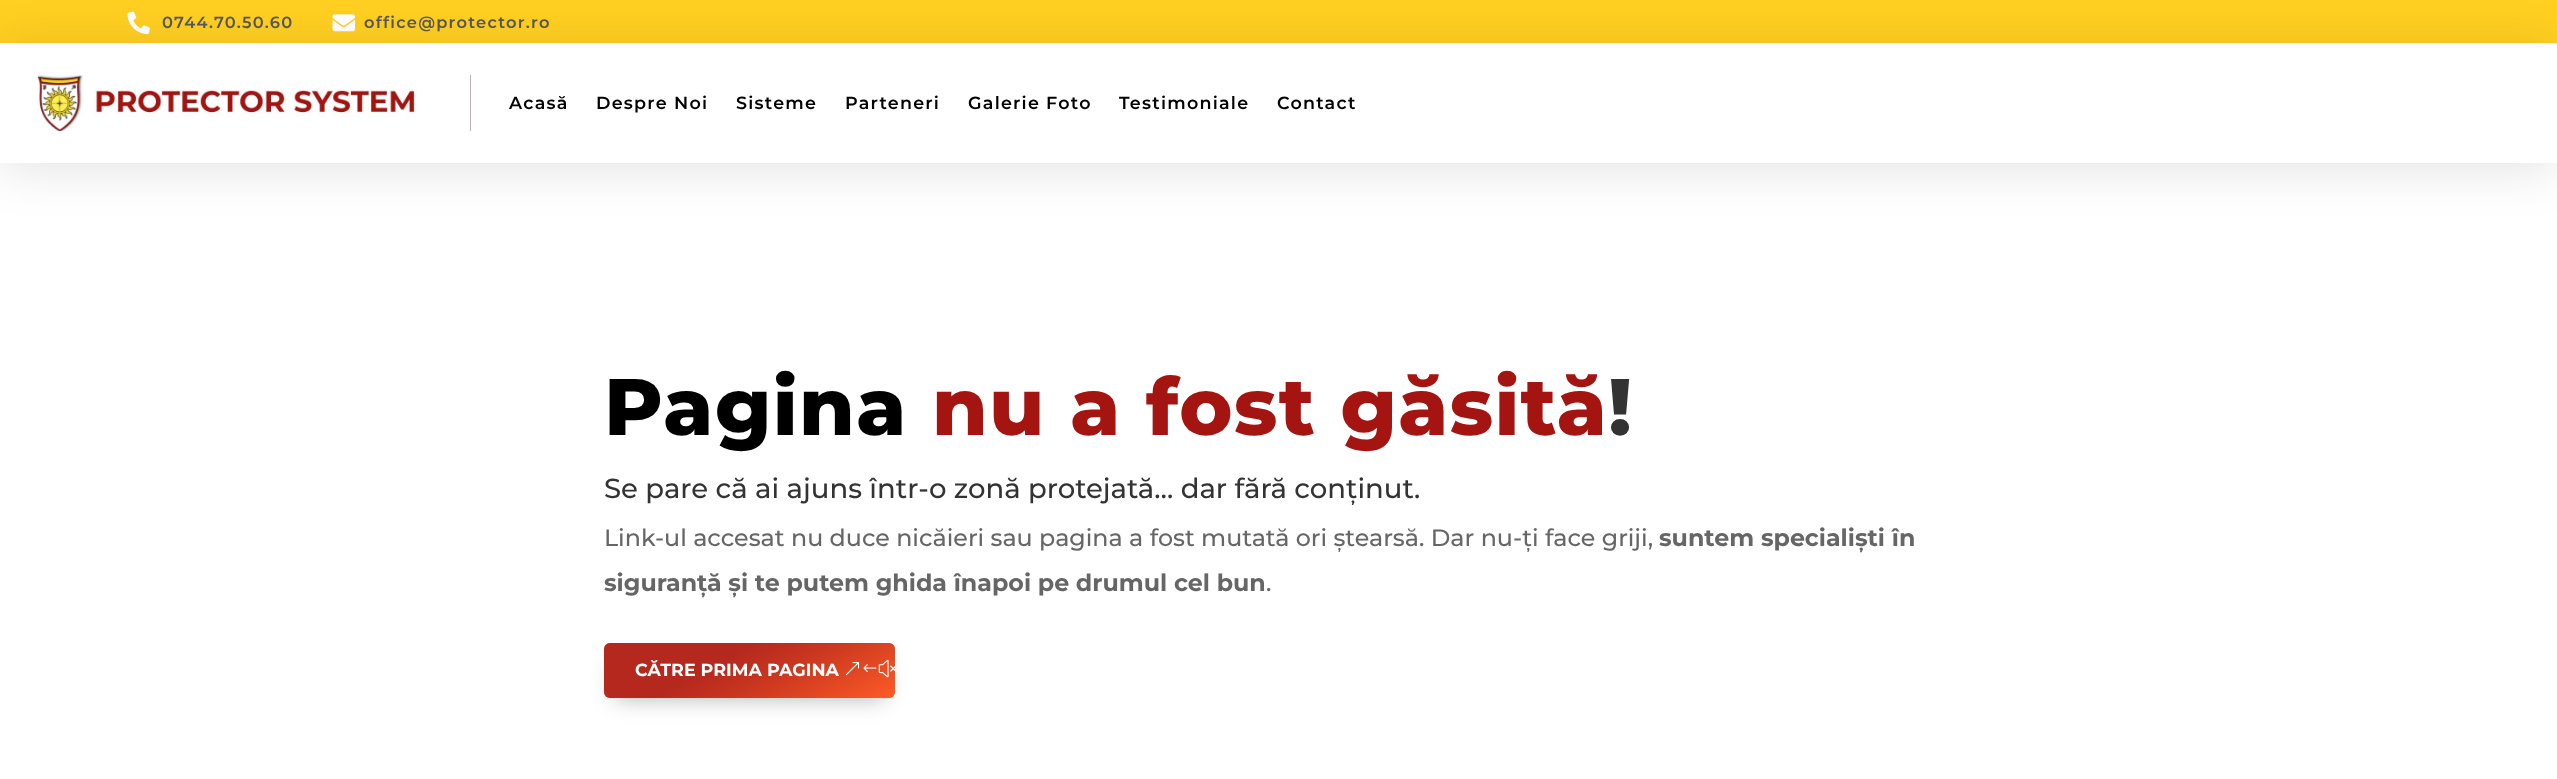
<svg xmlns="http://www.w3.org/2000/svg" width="2557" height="779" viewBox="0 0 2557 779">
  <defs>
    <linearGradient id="g1" gradientUnits="userSpaceOnUse" x1="703" y1="587" x2="795" y2="753"><stop offset="0.38" stop-color="#a41511" stop-opacity="0.82"/><stop offset="1" stop-color="#ff5c26"/></linearGradient>
  </defs>
  <rect width="100%" height="100%" fill="#fff"/>
  <path d="M0 0h2557v43H0z" fill="#ffcf21"/>
  <image x="127" y="11" width="23" height="24" href="img/1.png"/>
  <image x="332" y="14" width="23" height="18" href="img/2.png"/>
  <path d="M0 49h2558v120H0z" fill="#0000001c" filter="blur(25px)"/>
  <path d="M0 43h2557v120H0z" fill="#fff"/>
  <path d="M470 75h1v56H470z" fill="#bdb1b1"/>
  <image x="37" y="75" width="380" height="57" href="img/3.png"/>
  <path d="M615 665h269v33H615z" fill="#0000004d" filter="blur(11px)"/>
  <rect x="604" y="643" width="291" height="55" rx="6" fill="#ff8057"/>
  <rect x="604" y="643" width="291" height="55" rx="6" fill="url(#g1)"/>
  <image x="846" y="659" width="50" height="19" href="img/4.png"/>
  <g font-family="'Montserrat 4'" font-size="16.25" font-weight="100" letter-spacing="1.25" fill="#565656">
    <text x="162" y="28">0744.70.50.60</text>
    <text x="364" y="28">office@protector.ro</text>
  </g>
  <g font-family="'Montserrat 4'" font-size="17.5" font-weight="100" letter-spacing="1.25" fill="#000">
    <text x="509" y="109">Acasă</text>
    <text x="596" y="109">Despre Noi</text>
    <text x="736" y="109">Sisteme</text>
    <text x="845" y="109">Parteneri</text>
    <text x="968" y="109">Galerie Foto</text>
    <text x="1119" y="109">Testimoniale</text>
    <text x="1277" y="109">Contact</text>
  </g>
  <text x="604" y="435" font-family="Montserrat" font-size="80" font-weight="100" letter-spacing="1.25" fill="#000">Pagina</text>
  <text x="932" y="435" font-family="Montserrat" font-size="80" font-weight="100" letter-spacing="1.25" fill="#a41511">nu a fost găsită</text>
  <text x="1608" y="435" font-family="Montserrat" font-size="80" font-weight="100" letter-spacing="1.25" fill="#333">!</text>
  <text x="604" y="498" font-family="'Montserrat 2'" font-size="27.5" font-weight="100" fill="#333">Se pare că ai ajuns într-o zonă protejată… dar fără conținut.</text>
  <text x="604" y="546" font-family="'Montserrat 2'" font-size="23.75" font-weight="100" fill="#666">Link-ul accesat nu duce nicăieri sau pagina a fost mutată ori ștearsă. Dar nu-ți face griji,</text>
  <g font-family="'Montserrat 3'" font-size="23.75" font-weight="100" fill="#666">
    <text x="1659" y="546">suntem specialiști în</text>
    <text x="604" y="591">siguranță și te putem ghida înapoi pe drumul cel bun</text>
  </g>
  <text x="1266" y="591" font-family="'Montserrat 2'" font-size="23.75" font-weight="100" fill="#666">.</text>
  <text x="635" y="676" font-family="'Montserrat 3'" font-size="17.5" font-weight="100" fill="#fff">CĂTRE PRIMA PAGINA</text>
</svg>
